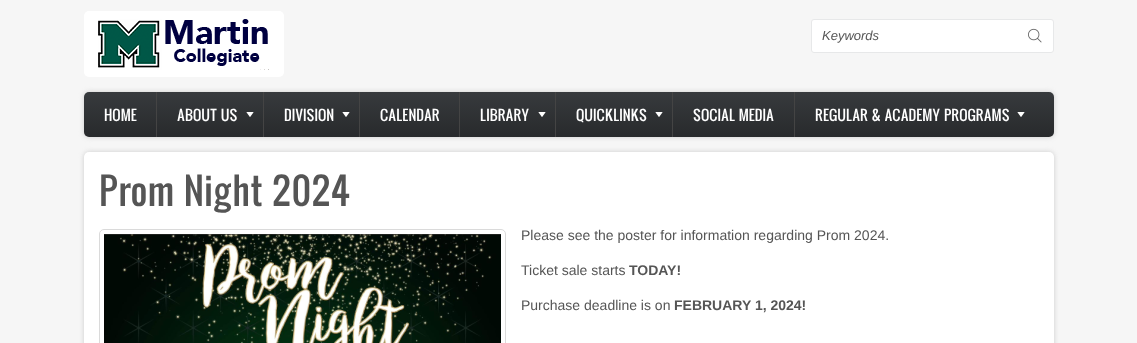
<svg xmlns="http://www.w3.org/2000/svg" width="1137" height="343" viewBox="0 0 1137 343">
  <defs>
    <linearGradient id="g1" gradientUnits="userSpaceOnUse" x1="569" y1="92" x2="569" y2="137"><stop offset="0" stop-color="#373a3d"/><stop offset="1" stop-color="#282a2c"/></linearGradient>
  </defs>
  <rect width="100%" height="100%" fill="#f6f6f6"/>
  <rect x="84" y="11" width="200" height="66" rx="5" fill="#fff"/>
  <image x="98" y="19" width="171" height="51" href="img/1.png"/>
  <rect x="811.5" y="19.5" width="242" height="33" rx="2.5" fill="#fff" stroke="#e7e8e9"/>
  <image x="1028" y="28" width="14" height="15" href="img/2.png"/>
  <rect x="84" y="92" width="970" height="45" rx="5" fill="#ccc" filter="blur(2.5px)"/>
  <rect x="84" y="92" width="970" height="45" rx="5" fill="url(#g1)"/>
  <path d="M156 92h1v45H156z" fill="#444"/>
  <image x="246" y="112" width="8" height="5" href="img/3.png"/>
  <path d="M263 92h1v45H263z" fill="#444"/>
  <image x="342" y="112" width="8" height="5" href="img/3.png"/>
  <path d="M359 92h1v45H359z" fill="#444"/>
  <path d="M459 92h1v45H459z" fill="#444"/>
  <image x="538" y="112" width="8" height="5" href="img/3.png"/>
  <path d="M555 92h1v45H555z" fill="#444"/>
  <image x="655" y="112" width="8" height="5" href="img/3.png"/>
  <path d="M672 92h1v45H672z" fill="#444"/>
  <path d="M794 92h1v45H794z" fill="#444"/>
  <image x="1017" y="112" width="8" height="5" href="img/3.png"/>
  <rect x="84" y="152" width="970" height="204" rx="5" fill="#ccc" filter="blur(2.5px)"/>
  <rect x="84" y="152" width="970" height="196" rx="5" fill="#fff"/>
  <rect x="99.5" y="229.5" width="406" height="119" rx="4.5" fill="none" stroke="#dadada"/>
  <image x="104" y="234" width="397" height="109" href="img/4.png"/>
  <text x="822" y="40" font-family="Liberation Sans" font-size="13" font-style="italic" fill="#555">Keywords</text>
  <g font-family="Oswald" font-size="14" fill="#fff">
    <text x="104" y="121">HOME</text>
    <text x="177" y="121">ABOUT US</text>
    <text x="284" y="121">DIVISION</text>
    <text x="380" y="121">CALENDAR</text>
    <text x="480" y="121">LIBRARY</text>
    <text x="576" y="121">QUICKLINKS</text>
    <text x="693" y="121">SOCIAL MEDIA</text>
    <text x="815" y="121">REGULAR &amp; ACADEMY PROGRAMS</text>
  </g>
  <text x="99" y="206" font-family="Oswald" font-size="36" fill="#555">Prom Night 2024</text>
  <g font-family="Liberation Sans" font-size="14" fill="#555">
    <text x="521" y="240">Please see the poster for information regarding Prom 2024.</text>
    <text x="521" y="275">Ticket sale starts</text>
  </g>
  <text x="629" y="275" font-family="Liberation Sans" font-size="14" font-weight="bold" fill="#555">TODAY!</text>
  <text x="521" y="310" font-family="Liberation Sans" font-size="14" fill="#555">Purchase deadline is on</text>
  <text x="674" y="310" font-family="Liberation Sans" font-size="14" font-weight="bold" fill="#555">FEBRUARY 1, 2024!</text>
</svg>
